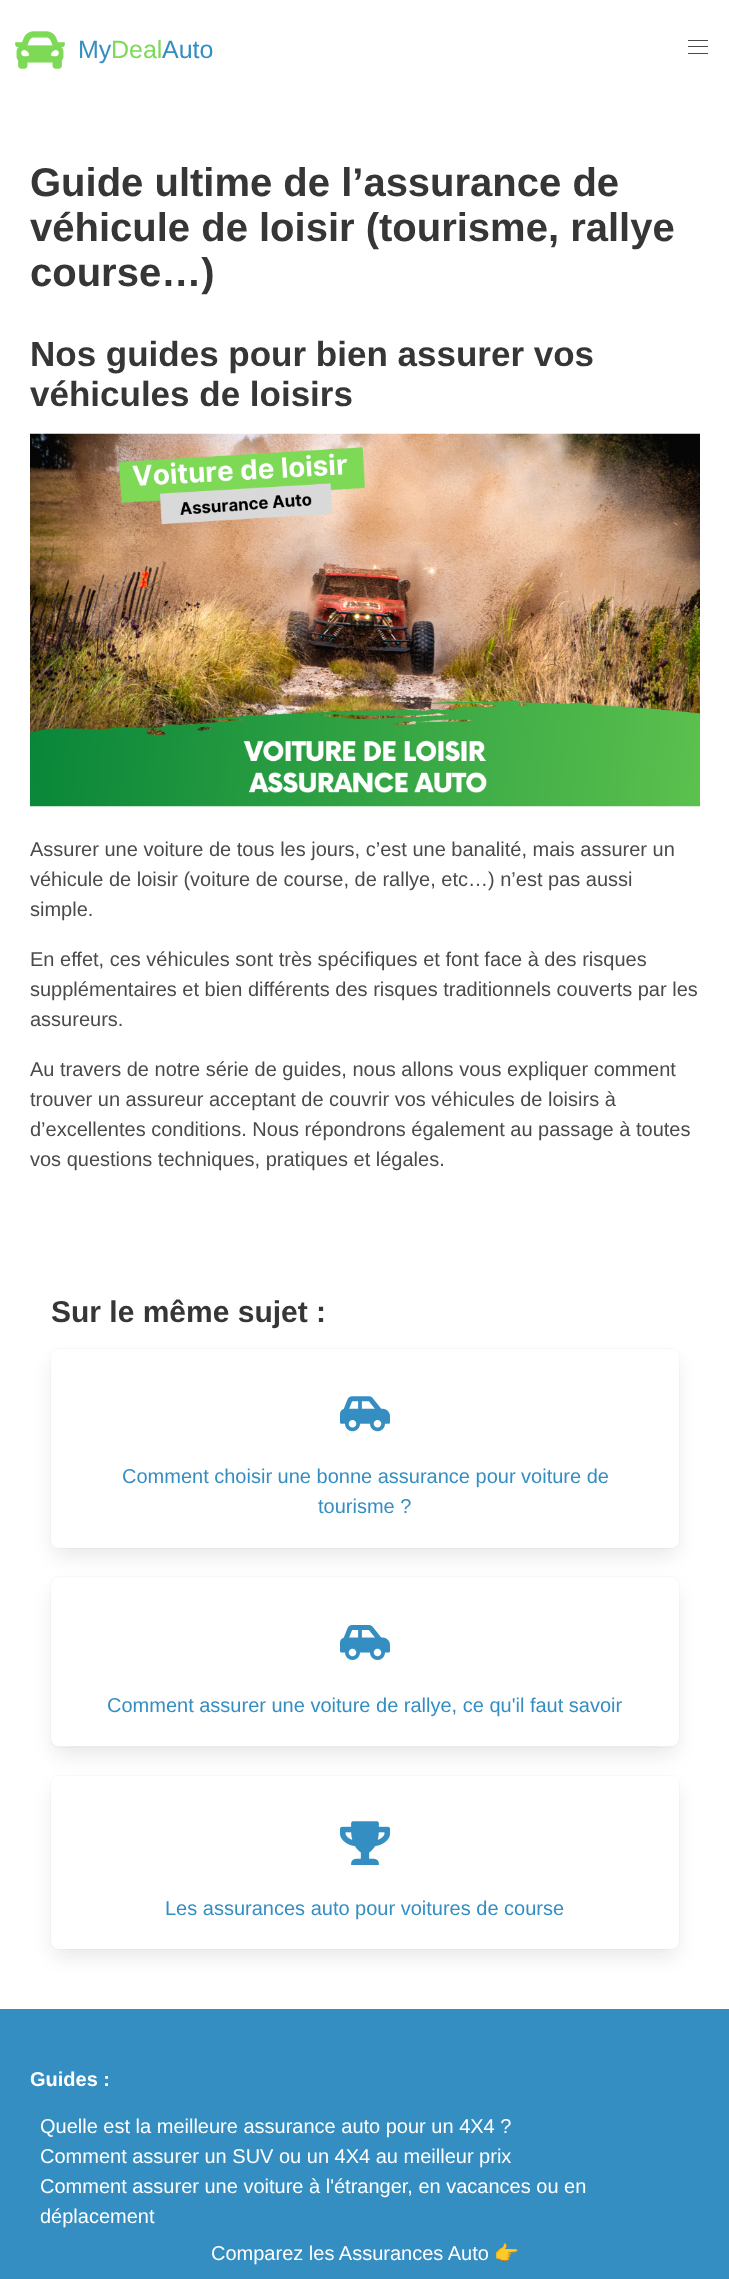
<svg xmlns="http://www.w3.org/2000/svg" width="729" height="2279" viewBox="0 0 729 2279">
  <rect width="100%" height="100%" fill="#fff"/>
  <image x="15" y="31" width="50" height="38" href="img/1.png"/>
  <path d="M688 40h20v1H688z" fill="#4a4a4a"/>
  <path d="M688 46h20v1H688z" fill="#4a4a4a"/>
  <path d="M688 53h20v1H688z" fill="#4a4a4a"/>
  <image x="30" y="433" width="670" height="374" href="img/2.png"/>
  <rect x="50.5" y="1348.5" width="629" height="200" rx="8.5" fill="none" stroke="#fafafa"/>
  <rect x="54" y="1361" width="622" height="194" rx="5" fill="#0a0a0a1a" filter="blur(10px)"/>
  <rect x="51" y="1349" width="628" height="199" rx="8" fill="#fff"/>
  <image x="340" y="1396" width="50" height="36" href="img/3.png"/>
  <rect x="50.5" y="1576.5" width="629" height="171" rx="8.5" fill="none" stroke="#fafafa"/>
  <rect x="54" y="1590" width="622" height="164" rx="5" fill="#0a0a0a1a" filter="blur(10px)"/>
  <rect x="51" y="1578" width="628" height="168" rx="8" fill="#fff"/>
  <image x="340" y="1625" width="50" height="35" href="img/4.png"/>
  <rect x="50.5" y="1775.5" width="629" height="174" rx="8.5" fill="none" stroke="#fafafa"/>
  <rect x="54" y="1789" width="622" height="167" rx="5" fill="#0a0a0a1a" filter="blur(10px)"/>
  <rect x="51" y="1776" width="628" height="173" rx="8" fill="#fff"/>
  <image x="340" y="1821" width="50" height="44" href="img/5.png"/>
  <path d="M0 2009h729v270H0z" fill="#348ec2"/>
  <text x="78" y="58" font-family="Liberation Sans" font-size="25" fill="#348ec2">My</text>
  <text x="111" y="58" font-family="Liberation Sans" font-size="25" fill="#7ed957">Deal</text>
  <text x="162" y="58" font-family="Liberation Sans" font-size="25" fill="#348ec2">Auto</text>
  <g font-family="Liberation Sans" font-size="40" font-weight="bold" fill="#363636">
    <text x="30" y="196">Guide ultime de l’assurance de</text>
    <text x="30" y="241">véhicule de loisir (tourisme, rallye</text>
    <text x="30" y="286">course…)</text>
  </g>
  <g font-family="Liberation Sans" font-size="35" font-weight="bold" fill="#363636">
    <text x="30" y="366">Nos guides pour bien assurer vos</text>
    <text x="30" y="406">véhicules de loisirs</text>
  </g>
  <g font-family="Liberation Sans" font-size="20" fill="#4a4a4a">
    <text x="30" y="856">Assurer une voiture de tous les jours, c’est une banalité, mais assurer un</text>
    <text x="30" y="886">véhicule de loisir (voiture de course, de rallye, etc…) n’est pas aussi</text>
    <text x="30" y="916">simple.</text>
    <text x="30" y="966">En effet, ces véhicules sont très spécifiques et font face à des risques</text>
    <text x="30" y="996">supplémentaires et bien différents des risques traditionnels couverts par les</text>
    <text x="30" y="1026">assureurs.</text>
    <text x="30" y="1076">Au travers de notre série de guides, nous allons vous expliquer comment</text>
    <text x="30" y="1106">trouver un assureur acceptant de couvrir vos véhicules de loisirs à</text>
    <text x="30" y="1136">d’excellentes conditions. Nous répondrons également au passage à toutes</text>
    <text x="30" y="1166">vos questions techniques, pratiques et légales.</text>
  </g>
  <text x="51" y="1322" font-family="Liberation Sans" font-size="30" font-weight="bold" fill="#363636">Sur le même sujet :</text>
  <g font-family="Liberation Sans" font-size="20" fill="#348ec2">
    <text x="122" y="1483">Comment choisir une bonne assurance pour voiture de</text>
    <text x="318" y="1513">tourisme ?</text>
    <text x="107" y="1712">Comment assurer une voiture de rallye, ce qu'il faut savoir</text>
    <text x="165" y="1915">Les assurances auto pour voitures de course</text>
  </g>
  <text x="30" y="2086" font-family="Liberation Sans" font-size="20" font-weight="bold" fill="#fff">Guides :</text>
  <g font-family="Liberation Sans" font-size="20" fill="#fff">
    <text x="40" y="2133">Quelle est la meilleure assurance auto pour un 4X4 ?</text>
    <text x="40" y="2163">Comment assurer un SUV ou un 4X4 au meilleur prix</text>
    <text x="40" y="2193">Comment assurer une voiture à l'étranger, en vacances ou en</text>
    <text x="40" y="2223">déplacement</text>
    <text x="211" y="2260">Comparez les Assurances Auto</text>
  </g>
  <text x="494" y="2260" font-family="Noto Color Emoji" font-size="20" fill="#fff">👉</text>
</svg>
